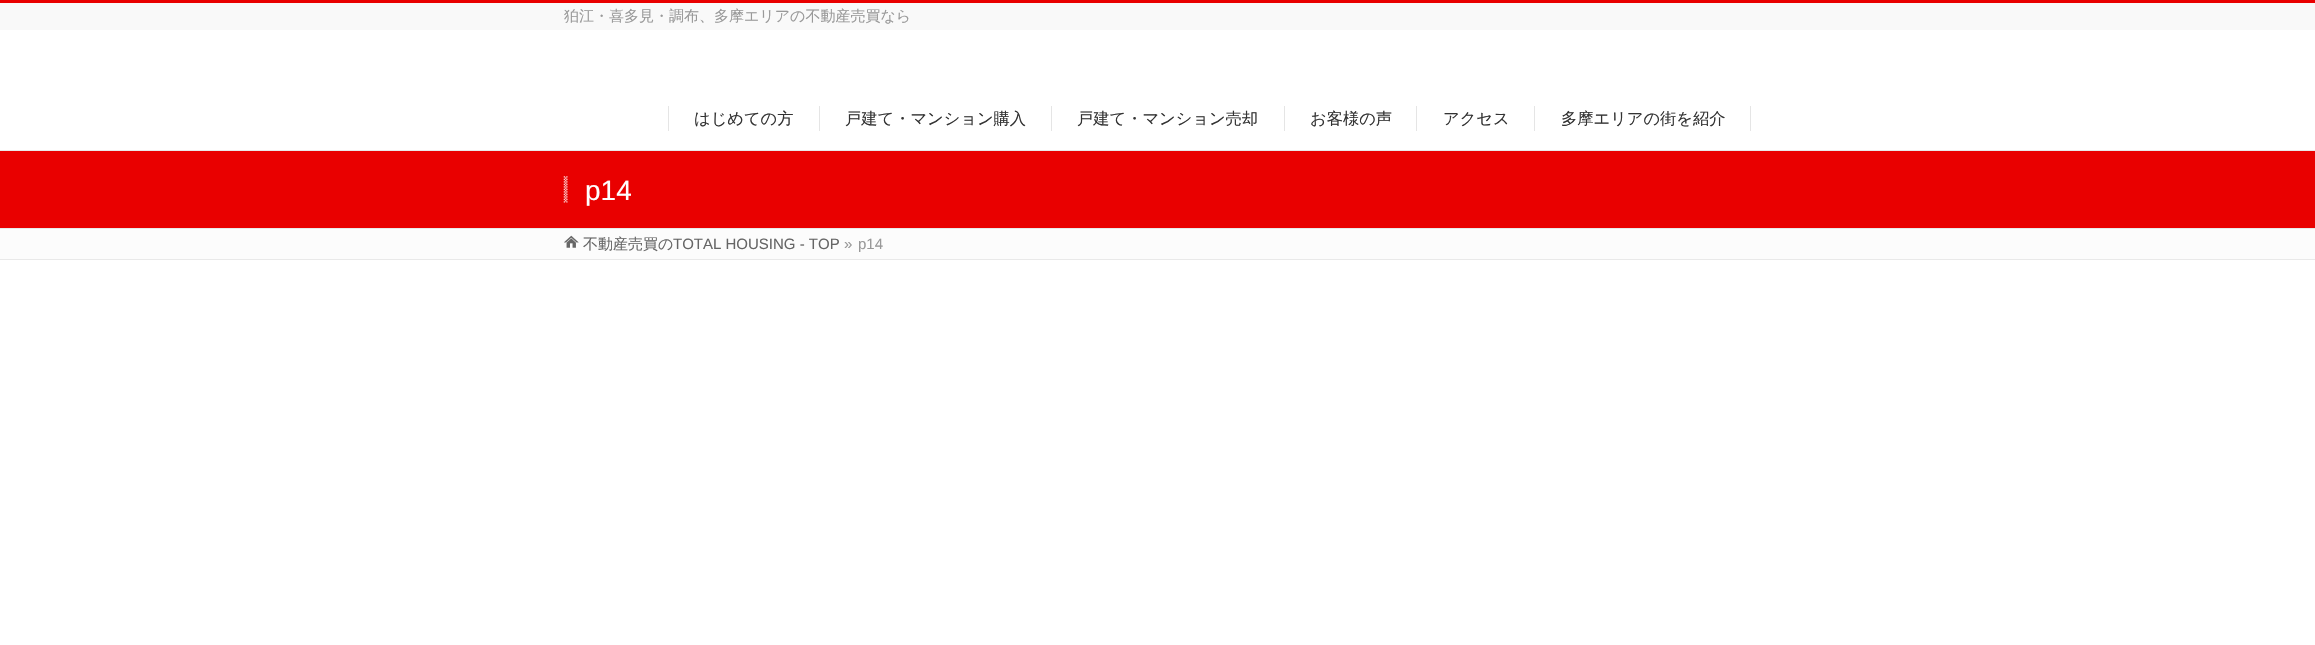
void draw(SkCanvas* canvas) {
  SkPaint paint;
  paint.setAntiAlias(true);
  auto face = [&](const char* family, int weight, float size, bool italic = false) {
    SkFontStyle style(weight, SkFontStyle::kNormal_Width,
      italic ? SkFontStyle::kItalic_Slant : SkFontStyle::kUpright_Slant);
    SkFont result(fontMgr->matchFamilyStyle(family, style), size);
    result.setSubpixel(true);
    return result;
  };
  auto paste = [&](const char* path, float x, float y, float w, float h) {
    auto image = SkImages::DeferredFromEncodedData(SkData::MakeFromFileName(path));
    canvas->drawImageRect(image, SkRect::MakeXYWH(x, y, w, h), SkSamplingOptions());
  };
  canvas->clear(0xffffffff);
  {
    const struct { float x, y, w, h; SkColor color; } items[] = {
      {0, 3, 2315, 27, 0xfff9f9f9},
      {0, 0, 2315, 3, 0xffe90000},
      {819, 106, 1, 25, 0xffe5e5e5},
      {668, 106, 1, 25, 0xffe5e5e5},
      {1051, 106, 1, 25, 0xffe5e5e5},
      {1284, 106, 1, 25, 0xffe5e5e5},
      {1416, 106, 1, 25, 0xffe5e5e5},
      {1534, 106, 1, 25, 0xffe5e5e5},
      {1750, 106, 1, 25, 0xffe5e5e5},
      {0, 151, 2315, 77, 0xffe90000},
      {0, 150, 2315, 1, 0xffe9e9e9},
      {0, 228, 2315, 1, 0xffe9e9e9},
    };
    for (auto [x, y, w, h, color] : items) {
      paint.setColor(color);
      canvas->drawRect(SkRect::MakeXYWH(x, y, w, h), paint);
    }
  }
  paste("img/1.png", 563, 176, 5, 27);
  paint.setColor(0xfffcfcfc);
  canvas->drawRect(SkRect::MakeXYWH(0, 229, 2315, 30), paint);
  paste("img/2.png", 564, 235, 15, 13);
  paint.setColor(0xffe9e9e9);
  canvas->drawRect(SkRect::MakeXYWH(0, 259, 2315, 1), paint);
  auto f0 = face("WenQuanYi Zen Hei", 500, 15);
  paint.setColor(0xff999999);
  canvas->drawString("狛江・喜多見・調布、多摩エリアの不動産売買なら", 564, 21, f0, paint);
  auto f1 = face("WenQuanYi Zen Hei", 500, 16.25f);
  paint.setColor(0xff333333);
  {
    const struct { const char* s; float x, y; } items[] = {
      {"はじめての方", 694, 124},
      {"戸建て・マンション購入", 845, 124},
      {"戸建て・マンション売却", 1077, 124},
      {"お客様の声", 1310, 124},
      {"アクセス", 1443, 124},
      {"多摩エリアの街を紹介", 1561, 124},
    };
    for (auto [s, x, y] : items) {
      canvas->drawString(s, x, y, f1, paint);
    }
  }
  auto f2 = face("Liberation Sans", 400, 28);
  paint.setColor(0xffffffff);
  canvas->drawString("p14", 585, 200, f2, paint);
  paint.setColor(0xff666666);
  canvas->drawString("不動産売買の", 583, 249, f0, paint);
  auto f3 = face("Liberation Sans", 400, 15);
  canvas->drawString("TOTAL HOUSING - TOP", 673, 249, f3, paint);
  paint.setColor(0xff999999);
  canvas->drawString("»", 844, 249, f3, paint);
  canvas->drawString("p14", 858, 249, f3, paint);
}
